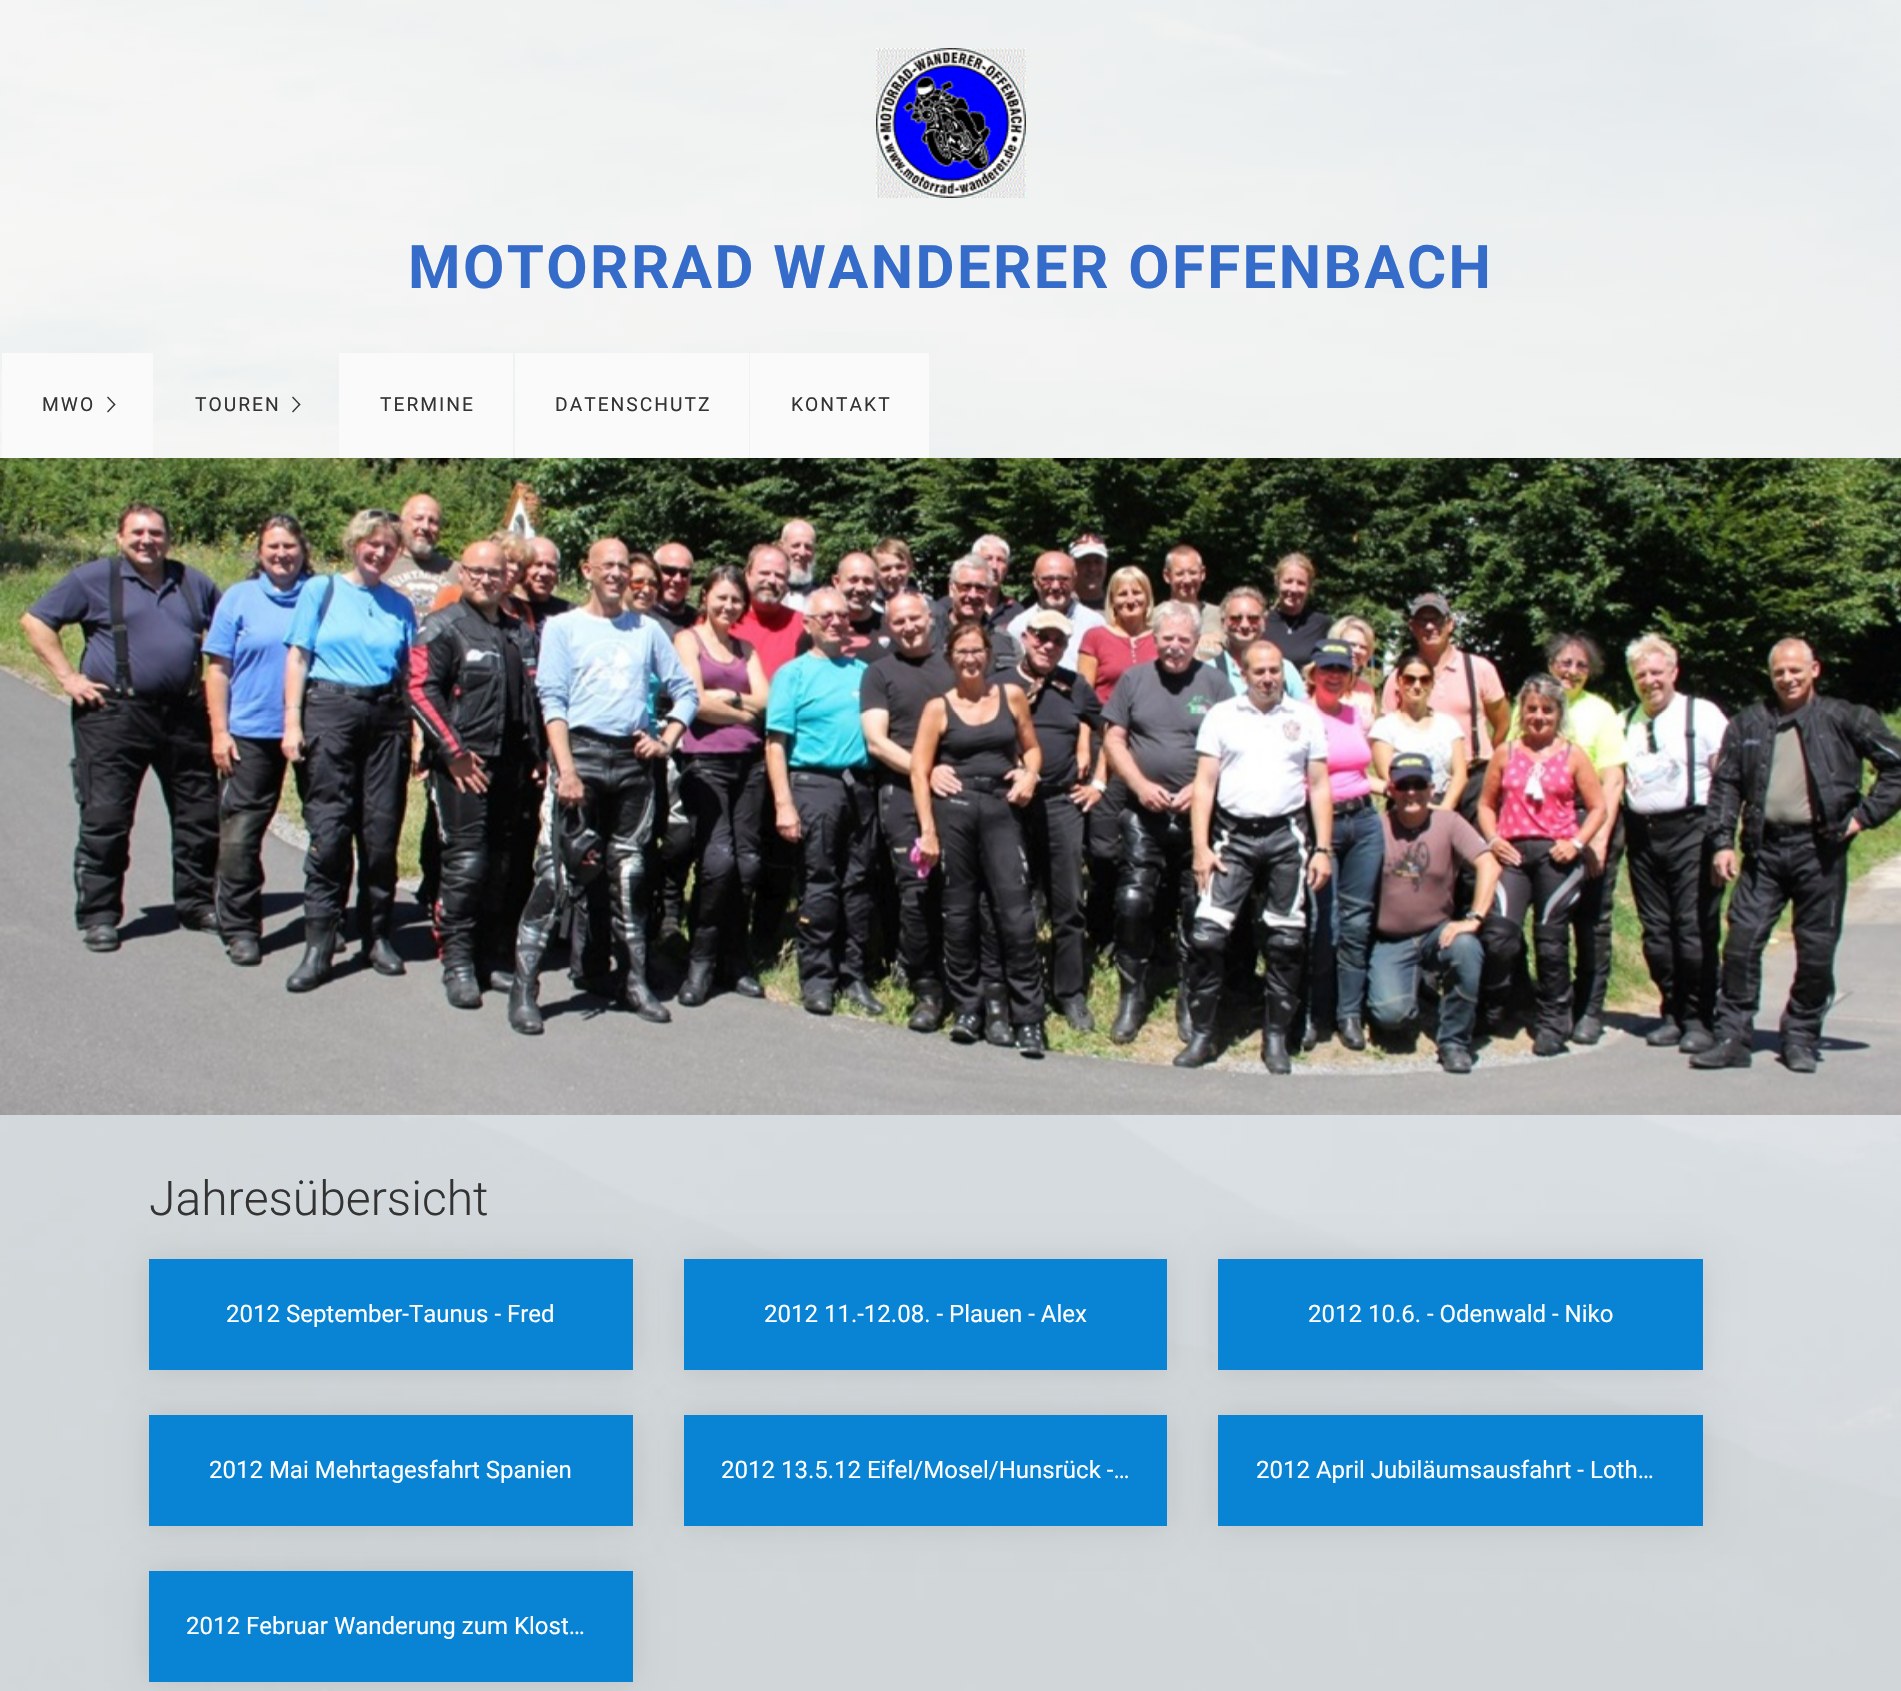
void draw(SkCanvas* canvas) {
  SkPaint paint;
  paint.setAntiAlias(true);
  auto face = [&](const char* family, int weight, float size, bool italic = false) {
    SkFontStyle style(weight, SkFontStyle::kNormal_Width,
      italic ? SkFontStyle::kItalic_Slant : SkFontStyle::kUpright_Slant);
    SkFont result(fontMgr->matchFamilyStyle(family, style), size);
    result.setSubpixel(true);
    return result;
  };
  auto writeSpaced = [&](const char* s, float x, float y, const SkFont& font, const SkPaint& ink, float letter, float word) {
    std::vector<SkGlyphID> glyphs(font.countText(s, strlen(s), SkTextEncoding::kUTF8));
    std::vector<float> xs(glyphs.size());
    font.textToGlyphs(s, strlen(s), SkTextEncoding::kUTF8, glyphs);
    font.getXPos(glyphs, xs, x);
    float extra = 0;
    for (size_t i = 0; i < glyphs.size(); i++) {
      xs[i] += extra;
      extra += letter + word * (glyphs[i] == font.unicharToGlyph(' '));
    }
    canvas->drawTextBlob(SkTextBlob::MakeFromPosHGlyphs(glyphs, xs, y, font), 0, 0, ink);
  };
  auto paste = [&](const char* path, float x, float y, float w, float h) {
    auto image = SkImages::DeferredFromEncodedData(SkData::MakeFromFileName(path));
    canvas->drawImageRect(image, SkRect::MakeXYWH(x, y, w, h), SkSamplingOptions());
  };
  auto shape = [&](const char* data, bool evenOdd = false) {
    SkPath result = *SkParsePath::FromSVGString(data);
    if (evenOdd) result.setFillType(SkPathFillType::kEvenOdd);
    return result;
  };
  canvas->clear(0xffffffff);
  paste("img/1.png", 0, 0, 1901, 1691);
  paste("img/2.png", 876, 48, 150, 150);
  paint.setColor(0xfffafafa);
  canvas->drawRect(SkRect::MakeXYWH(2, 353, 151, 105), paint);
  paint.setColor(0xff333333);
  canvas->drawPath(shape("M108 396.5L115.5 404.5L114.5 405.5L107 397.5Z"), paint);
  canvas->drawPath(shape("M114.5 403.5L115.5 404.5L108 412.5L107 411.5Z"), paint);
  canvas->drawPath(shape("M293 396.5L300.5 404.5L299.5 405.5L292 397.5Z"), paint);
  canvas->drawPath(shape("M299.5 403.5L300.5 404.5L293 412.5L292 411.5Z"), paint);
  {
    const struct { float x, y, w, h; SkColor color; } items[] = {
      {339, 353, 174, 105, 0xfffafafa},
      {515, 353, 234, 105, 0xfffafafa},
      {750, 353, 179, 105, 0xfffafafa},
    };
    for (auto [x, y, w, h, color] : items) {
      paint.setColor(color);
      canvas->drawRect(SkRect::MakeXYWH(x, y, w, h), paint);
    }
  }
  paste("img/3.png", 0, 458, 1901, 657);
  paint.setColor(0x1a000000);
  paint.setMaskFilter(SkMaskFilter::MakeBlur(kNormal_SkBlurStyle, 15));
  canvas->drawRect(SkRect::MakeXYWH(149, 1259, 484, 111), paint);
  paint.setMaskFilter(nullptr);
  paint.setColor(0xff0983d3);
  canvas->drawRect(SkRect::MakeXYWH(149, 1259, 484, 111), paint);
  paint.setColor(0x1a000000);
  paint.setMaskFilter(SkMaskFilter::MakeBlur(kNormal_SkBlurStyle, 15));
  canvas->drawRect(SkRect::MakeXYWH(684, 1259, 483, 111), paint);
  paint.setMaskFilter(nullptr);
  paint.setColor(0xff0983d3);
  canvas->drawRect(SkRect::MakeXYWH(684, 1259, 483, 111), paint);
  paint.setColor(0x1a000000);
  paint.setMaskFilter(SkMaskFilter::MakeBlur(kNormal_SkBlurStyle, 15));
  canvas->drawRect(SkRect::MakeXYWH(1218, 1259, 485, 111), paint);
  paint.setMaskFilter(nullptr);
  paint.setColor(0xff0983d3);
  canvas->drawRect(SkRect::MakeXYWH(1218, 1259, 485, 111), paint);
  paint.setColor(0x1a000000);
  paint.setMaskFilter(SkMaskFilter::MakeBlur(kNormal_SkBlurStyle, 15));
  canvas->drawRect(SkRect::MakeXYWH(149, 1415, 484, 111), paint);
  paint.setMaskFilter(nullptr);
  paint.setColor(0xff0983d3);
  canvas->drawRect(SkRect::MakeXYWH(149, 1415, 484, 111), paint);
  paint.setColor(0x1a000000);
  paint.setMaskFilter(SkMaskFilter::MakeBlur(kNormal_SkBlurStyle, 15));
  canvas->drawRect(SkRect::MakeXYWH(684, 1415, 483, 111), paint);
  paint.setMaskFilter(nullptr);
  paint.setColor(0xff0983d3);
  canvas->drawRect(SkRect::MakeXYWH(684, 1415, 483, 111), paint);
  paint.setColor(0x1a000000);
  paint.setMaskFilter(SkMaskFilter::MakeBlur(kNormal_SkBlurStyle, 15));
  canvas->drawRect(SkRect::MakeXYWH(1218, 1415, 485, 111), paint);
  paint.setMaskFilter(nullptr);
  paint.setColor(0xff0983d3);
  canvas->drawRect(SkRect::MakeXYWH(1218, 1415, 485, 111), paint);
  paint.setColor(0x1a000000);
  paint.setMaskFilter(SkMaskFilter::MakeBlur(kNormal_SkBlurStyle, 15));
  canvas->drawRect(SkRect::MakeXYWH(149, 1571, 484, 111), paint);
  paint.setMaskFilter(nullptr);
  paint.setColor(0xff0983d3);
  canvas->drawRect(SkRect::MakeXYWH(149, 1571, 484, 111), paint);
  auto f0 = face("Roboto", 700, 60);
  paint.setColor(0xff356cca);
  writeSpaced("MOTORRAD WANDERER OFFENBACH", 408, 288, f0, paint, 2.4f, 0);
  auto f1 = face("Roboto", 400, 19.25f);
  paint.setColor(0xff333333);
  {
    const struct { const char* s; float x, y; } items[] = {
      {"MWO", 42, 411},
      {"TOUREN", 195, 411},
      {"TERMINE", 380, 411},
      {"DATENSCHUTZ", 555, 411},
      {"KONTAKT", 791, 411},
    };
    for (auto [s, x, y] : items) {
      writeSpaced(s, x, y, f1, paint, 2, 0);
    }
  }
  auto f2 = face("Roboto", 300, 48);
  canvas->drawString("Jahresübersicht", 149, 1215, f2, paint);
  auto f3 = face("Roboto", 400, 24);
  paint.setColor(0xffffffff);
  {
    const struct { const char* s; float x, y; } items[] = {
      {"2012 September-Taunus - Fred", 226, 1322},
      {"2012 11.-12.08. - Plauen - Alex", 764, 1322},
      {"2012 10.6. - Odenwald - Niko", 1308, 1322},
      {"2012 Mai Mehrtagesfahrt Spanien", 209, 1478},
      {"2012 13.5.12 Eifel/Mosel/Hunsrück -…", 721, 1478},
      {"2012 April Jubiläumsausfahrt - Loth…", 1256, 1478},
      {"2012 Februar Wanderung zum Klost…", 186, 1634},
    };
    for (auto [s, x, y] : items) {
      canvas->drawString(s, x, y, f3, paint);
    }
  }
}
